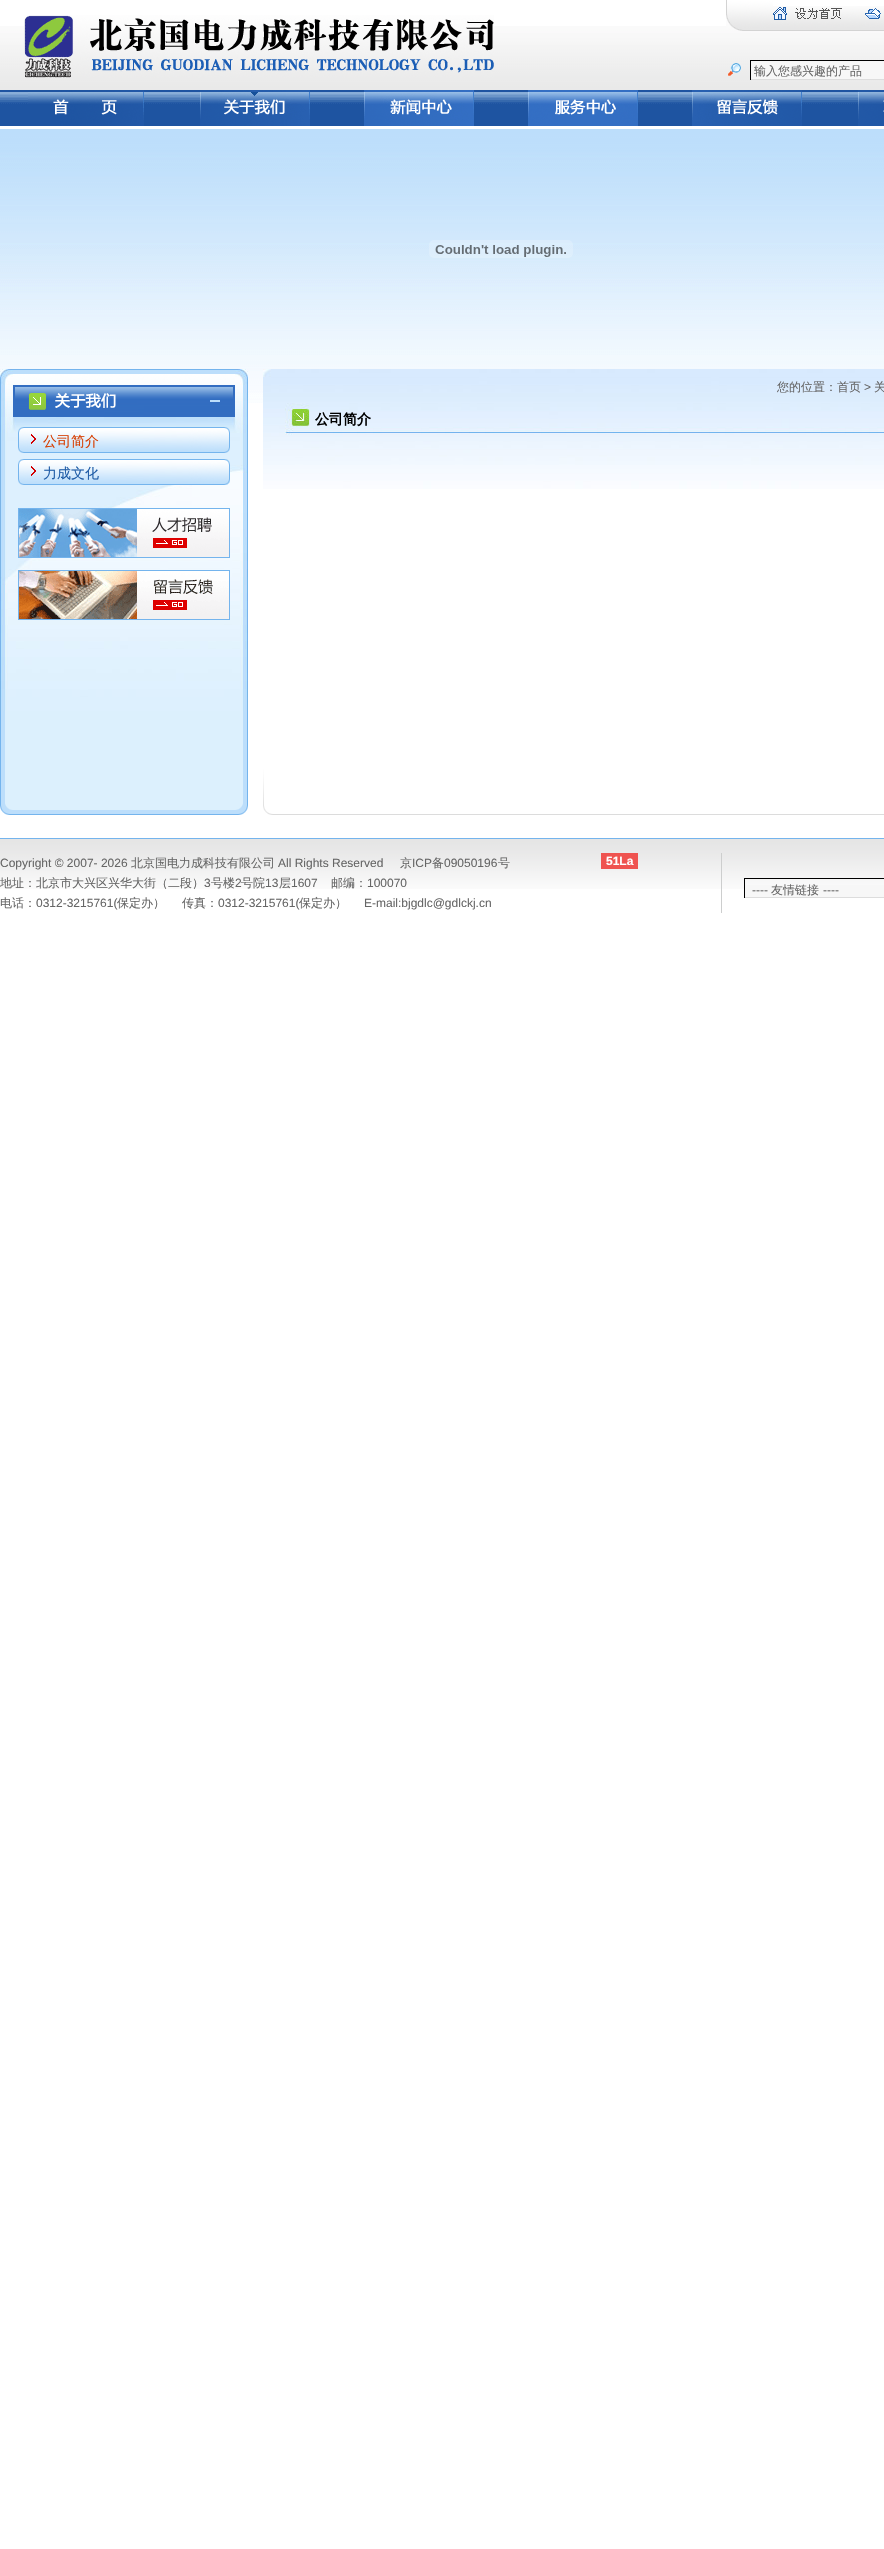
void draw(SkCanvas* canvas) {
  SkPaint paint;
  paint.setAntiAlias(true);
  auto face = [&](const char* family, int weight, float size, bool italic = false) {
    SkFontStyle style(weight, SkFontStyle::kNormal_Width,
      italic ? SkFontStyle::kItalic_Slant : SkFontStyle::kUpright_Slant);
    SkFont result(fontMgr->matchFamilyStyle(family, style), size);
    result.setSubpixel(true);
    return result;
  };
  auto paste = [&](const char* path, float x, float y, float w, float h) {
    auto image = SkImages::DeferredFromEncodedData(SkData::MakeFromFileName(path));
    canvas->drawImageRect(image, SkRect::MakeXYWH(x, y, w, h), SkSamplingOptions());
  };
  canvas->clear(0xffffffff);
  paste("img/1.png", 0, 26, 884, 377);
  paste("img/2.png", 24, 15, 470, 63);
  paste("img/3.png", 726, 0, 47, 31);
  paste("img/4.png", 773, 6, 80, 25);
  paste("img/5.png", 853, 6, 31, 25);
  paste("img/6.png", 728, 63, 13, 13);
  {
    const struct { float x, y, w, h; SkColor color; } items[] = {
      {751, 61, 133, 18, 0xfff7f7f7},
      {750, 60, 134, 1, 0xff000000},
      {750, 79, 134, 1, 0xffdddddd},
      {750, 60, 1, 20, 0xff000000},
    };
    for (auto [x, y, w, h, color] : items) {
      paint.setColor(color);
      canvas->drawRect(SkRect::MakeXYWH(x, y, w, h), paint);
    }
  }
  paste("img/7.png", 28, 90, 116, 36);
  paste("img/8.png", 200, 90, 110, 36);
  paste("img/9.png", 364, 90, 110, 36);
  paste("img/10.png", 528, 90, 110, 36);
  paste("img/11.png", 692, 90, 110, 36);
  paste("img/12.png", 858, 90, 26, 36);
  paste("img/13.png", 429, 240, 144, 18);
  paste("img/14.png", 0, 711, 248, 58);
  paste("img/15.png", 263, 369, 621, 120);
  paste("img/16.png", 285, 403, 599, 32);
  paste("img/17.png", 0, 369, 248, 342);
  paste("img/18.png", 13, 369, 222, 48);
  paste("img/19.png", 18, 427, 212, 26);
  paste("img/20.png", 18, 459, 212, 26);
  paste("img/21.png", 18, 508, 212, 50);
  paste("img/22.png", 18, 570, 212, 50);
  paste("img/23.png", 0, 769, 884, 46);
  paste("img/24.png", 0, 838, 884, 51);
  {
    const struct { float x, y, w, h; SkColor color; } items[] = {
      {601, 853, 37, 16, 0xffef5350},
      {721, 853, 1, 60, 0xffcdcece},
      {745, 885, 139, 12, 0xfff7f7f7},
      {744, 878, 140, 1, 0xff000000},
      {744, 897, 140, 1, 0xffdddddd},
      {744, 878, 1, 20, 0xff000000},
    };
    for (auto [x, y, w, h, color] : items) {
      paint.setColor(color);
      canvas->drawRect(SkRect::MakeXYWH(x, y, w, h), paint);
    }
  }
  auto f0 = face("WenQuanYi Zen Hei", 500, 12);
  paint.setColor(0xff666666);
  canvas->drawString("输入您感兴趣的产品", 754, 75, f0, paint);
  canvas->drawString("您的位置：首页", 777, 391, f0, paint);
  auto f1 = face("Liberation Sans", 400, 12);
  canvas->drawString(">", 864, 391, f1, paint);
  canvas->drawString("关", 874, 391, f0, paint);
  auto f2 = face("WenQuanYi Zen Hei", 700, 14);
  paint.setColor(0xff000000);
  canvas->drawString("公司简介", 315, 424, f2, paint);
  auto f3 = face("WenQuanYi Zen Hei", 500, 14);
  paint.setColor(0xffd73d00);
  canvas->drawString("公司简介", 43, 446, f3, paint);
  paint.setColor(0xff1f5ca7);
  canvas->drawString("力成文化", 43, 478, f3, paint);
  paint.setColor(0xff666666);
  canvas->drawString("Copyright © 2007- 2026", 0, 867, f1, paint);
  canvas->drawString("北京国电力成科技有限公司", 131, 867, f0, paint);
  canvas->drawString("All Rights Reserved", 278, 867, f1, paint);
  canvas->drawString("京", 400, 867, f0, paint);
  canvas->drawString("ICP", 412, 867, f1, paint);
  canvas->drawString("备", 432, 867, f0, paint);
  canvas->drawString("09050196", 444, 867, f1, paint);
  canvas->drawString("号", 498, 867, f0, paint);
  canvas->drawString("地址：北京市大兴区兴华大街（二段）", 0, 887, f0, paint);
  canvas->drawString("3", 204, 887, f1, paint);
  canvas->drawString("号楼", 211, 887, f0, paint);
  canvas->drawString("2", 235, 887, f1, paint);
  canvas->drawString("号院", 241, 887, f0, paint);
  canvas->drawString("13", 265, 887, f1, paint);
  canvas->drawString("层", 279, 887, f0, paint);
  canvas->drawString("1607", 291, 887, f1, paint);
  canvas->drawString("邮编：", 331, 887, f0, paint);
  canvas->drawString("100070", 367, 887, f1, paint);
  canvas->drawString("电话：", 0, 907, f0, paint);
  canvas->drawString("0312-3215761(", 36, 907, f1, paint);
  canvas->drawString("保定办）", 117, 907, f0, paint);
  canvas->drawString("传真：", 182, 907, f0, paint);
  canvas->drawString("0312-3215761(", 218, 907, f1, paint);
  canvas->drawString("保定办）", 299, 907, f0, paint);
  canvas->drawString("E-mail:bjgdlc@gdlckj.cn", 364, 907, f1, paint);
  auto f4 = face("Liberation Sans", 700, 12);
  paint.setColor(0xffffffff);
  canvas->drawString("51La", 606, 865, f4, paint);
  paint.setColor(0xff666666);
  canvas->drawString("----", 752, 894, f1, paint);
  canvas->drawString("友情链接", 771, 894, f0, paint);
  canvas->drawString("----", 823, 894, f1, paint);
}
